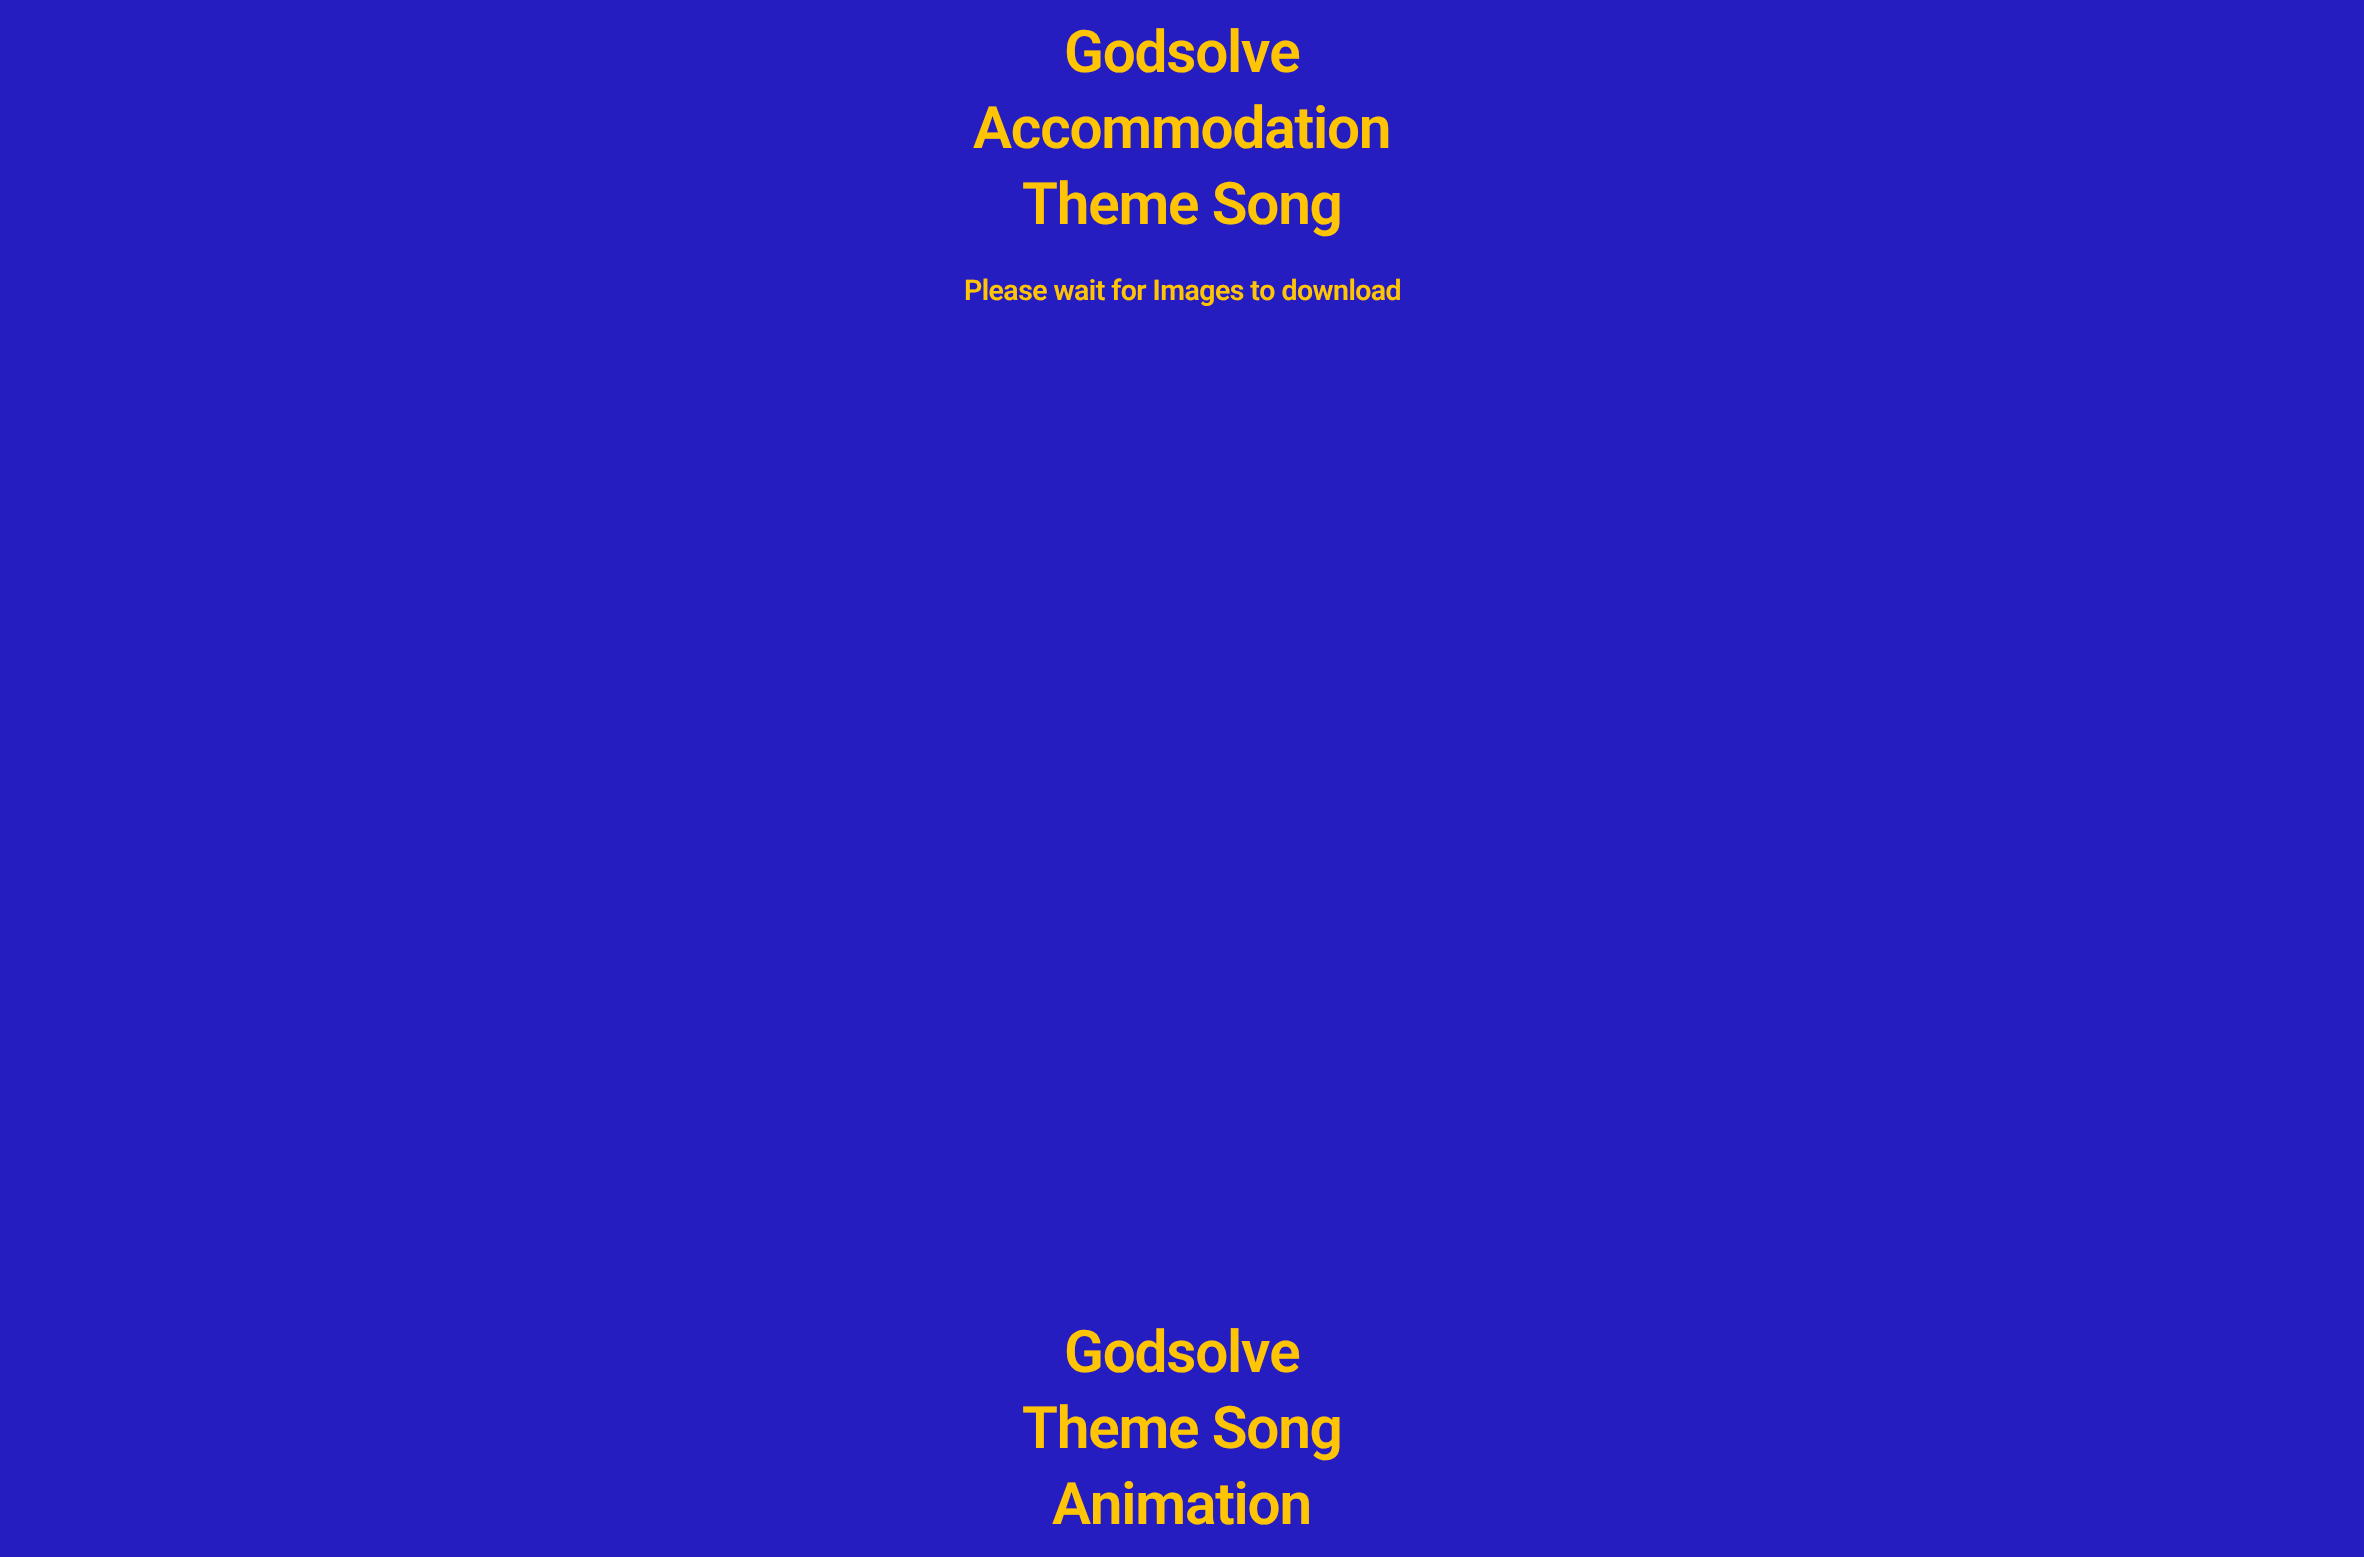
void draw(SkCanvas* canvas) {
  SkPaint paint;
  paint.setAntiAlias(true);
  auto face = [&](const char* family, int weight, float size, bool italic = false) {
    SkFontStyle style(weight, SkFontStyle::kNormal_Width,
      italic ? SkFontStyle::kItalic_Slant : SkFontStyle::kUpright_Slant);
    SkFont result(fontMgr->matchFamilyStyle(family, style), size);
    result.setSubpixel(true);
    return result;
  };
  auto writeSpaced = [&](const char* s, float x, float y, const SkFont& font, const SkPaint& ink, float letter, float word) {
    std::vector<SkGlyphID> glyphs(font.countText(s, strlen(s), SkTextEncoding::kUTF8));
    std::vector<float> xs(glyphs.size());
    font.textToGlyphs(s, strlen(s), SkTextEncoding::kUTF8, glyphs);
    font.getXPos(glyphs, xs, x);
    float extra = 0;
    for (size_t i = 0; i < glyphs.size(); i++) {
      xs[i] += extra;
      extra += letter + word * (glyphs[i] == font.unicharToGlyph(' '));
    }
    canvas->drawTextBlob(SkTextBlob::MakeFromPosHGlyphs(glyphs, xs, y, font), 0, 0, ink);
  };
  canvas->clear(0xff261dc1);
  auto f0 = face("Roboto", 600, 58.5f);
  paint.setColor(0xffffc403);
  {
    const struct { const char* s; float x, y; } items[] = {
      {"Godsolve", 1064, 72},
      {"Accommodation", 973, 148},
      {"Theme Song", 1022, 224},
    };
    for (auto [s, x, y] : items) {
      writeSpaced(s, x, y, f0, paint, -1.2f, 0);
    }
  }
  auto f1 = face("Roboto", 600, 28.5f);
  writeSpaced("Please wait for Images to download", 964, 300, f1, paint, -0.55f, 0);
  {
    const struct { const char* s; float x, y; } items[] = {
      {"Godsolve", 1064, 1372},
      {"Theme Song", 1022, 1448},
      {"Animation", 1052, 1524},
    };
    for (auto [s, x, y] : items) {
      writeSpaced(s, x, y, f0, paint, -1.2f, 0);
    }
  }
}
